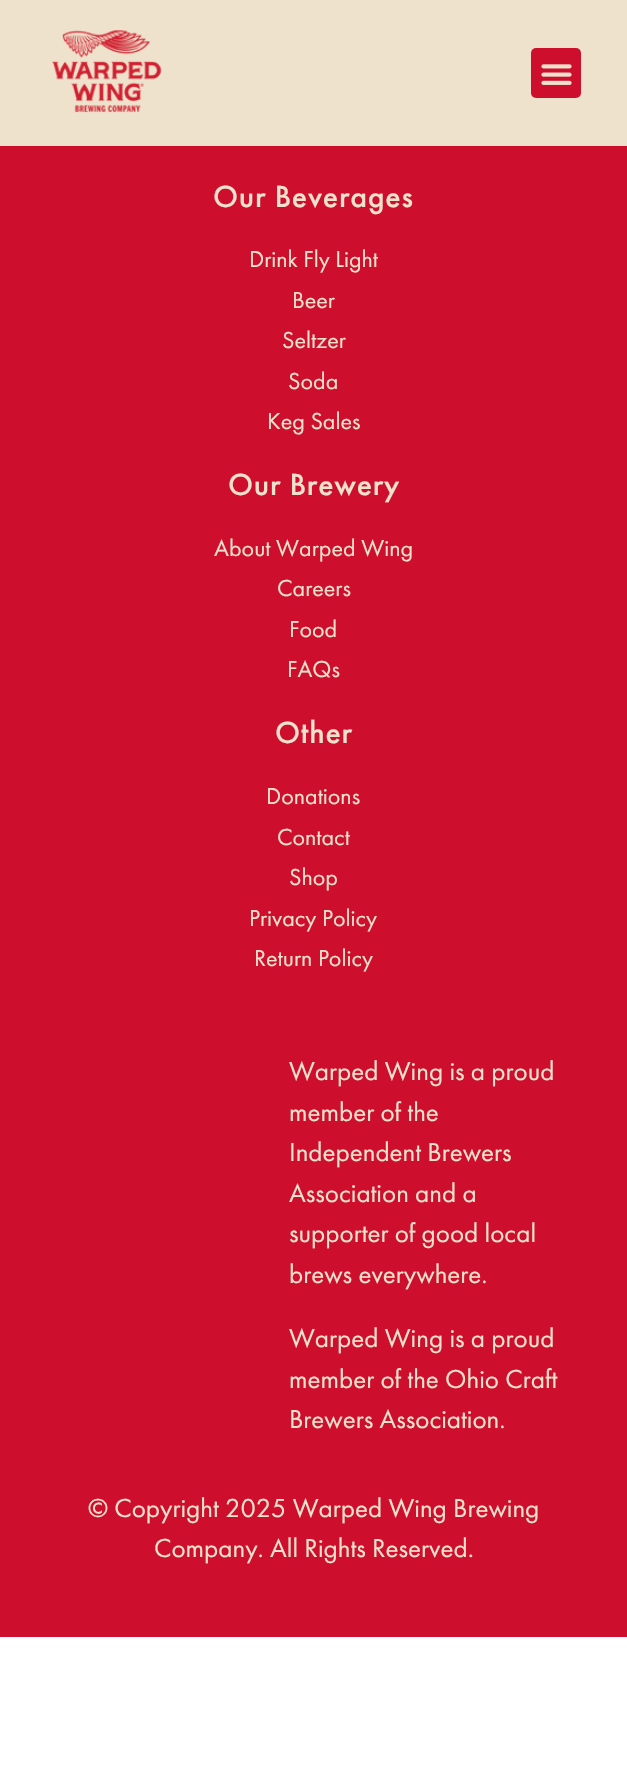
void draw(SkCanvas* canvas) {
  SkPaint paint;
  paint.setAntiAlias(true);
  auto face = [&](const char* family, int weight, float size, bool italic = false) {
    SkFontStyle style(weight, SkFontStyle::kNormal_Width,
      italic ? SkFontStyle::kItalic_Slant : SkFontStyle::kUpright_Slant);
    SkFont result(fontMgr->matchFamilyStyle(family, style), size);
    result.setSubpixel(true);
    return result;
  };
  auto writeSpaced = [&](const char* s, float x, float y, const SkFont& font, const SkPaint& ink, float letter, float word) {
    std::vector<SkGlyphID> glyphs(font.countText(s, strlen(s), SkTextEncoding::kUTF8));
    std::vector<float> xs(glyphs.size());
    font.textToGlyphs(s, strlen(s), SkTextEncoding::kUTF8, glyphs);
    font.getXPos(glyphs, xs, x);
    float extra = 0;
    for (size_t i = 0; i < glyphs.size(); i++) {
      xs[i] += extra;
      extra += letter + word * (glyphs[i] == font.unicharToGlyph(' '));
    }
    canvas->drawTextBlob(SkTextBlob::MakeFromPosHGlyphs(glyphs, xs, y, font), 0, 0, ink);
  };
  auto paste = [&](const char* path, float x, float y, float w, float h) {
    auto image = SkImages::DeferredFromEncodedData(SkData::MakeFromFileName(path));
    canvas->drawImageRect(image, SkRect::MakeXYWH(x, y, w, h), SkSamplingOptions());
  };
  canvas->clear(0xffffffff);
  paint.setColor(0xffefe2cd);
  canvas->drawRect(SkRect::MakeXYWH(0, 0, 627, 146), paint);
  paste("img/1.png", 52, 30, 110, 83);
  paint.setColor(0xffce0e2d);
  canvas->drawRoundRect(SkRect::MakeXYWH(531, 48, 50, 50), 5, 5, paint);
  paste("img/2.png", 541, 64, 31, 21);
  canvas->drawRect(SkRect::MakeXYWH(0, 146, 627, 1491), paint);
  auto f0 = face("Futura PT", 500, 31.75f);
  paint.setColor(0xffefe2cd);
  writeSpaced("Our Beverages", 213, 207, f0, paint, 0.75f, 0);
  auto f1 = face("Futura PT", 400, 24);
  {
    const struct { const char* s; float x, y; } items[] = {
      {"Drink Fly Light", 249, 267},
      {"Beer", 292, 308},
      {"Seltzer", 282, 348},
      {"Soda", 288, 389},
      {"Keg Sales", 267, 429},
    };
    for (auto [s, x, y] : items) {
      canvas->drawString(s, x, y, f1, paint);
    }
  }
  writeSpaced("Our Brewery", 228, 495, f0, paint, 0.75f, 0);
  {
    const struct { const char* s; float x, y; } items[] = {
      {"About Warped Wing", 214, 556},
      {"Careers", 277, 596},
      {"Food", 289, 637},
      {"FAQs", 287, 677},
    };
    for (auto [s, x, y] : items) {
      canvas->drawString(s, x, y, f1, paint);
    }
  }
  writeSpaced("Other", 275, 743, f0, paint, 0.75f, 0);
  {
    const struct { const char* s; float x, y; } items[] = {
      {"Donations", 266, 804},
      {"Contact", 277, 845},
      {"Shop", 289, 885},
      {"Privacy Policy", 249, 926},
      {"Return Policy", 254, 966},
    };
    for (auto [s, x, y] : items) {
      canvas->drawString(s, x, y, f1, paint);
    }
  }
  auto f2 = face("Futura PT", 400, 27);
  {
    const struct { const char* s; float x, y; } items[] = {
      {"Warped Wing is a proud", 289, 1080},
      {"member of the", 289, 1121},
      {"Independent Brewers", 289, 1161},
      {"Association and a", 289, 1202},
      {"supporter of good local", 289, 1242},
      {"brews everywhere.", 289, 1283},
      {"Warped Wing is a proud", 289, 1347},
      {"member of the Ohio Craft", 289, 1388},
      {"Brewers Association.", 289, 1428},
      {"© Copyright 2025 Warped Wing Brewing", 88, 1517},
      {"Company. All Rights Reserved.", 154, 1557},
    };
    for (auto [s, x, y] : items) {
      canvas->drawString(s, x, y, f2, paint);
    }
  }
}
